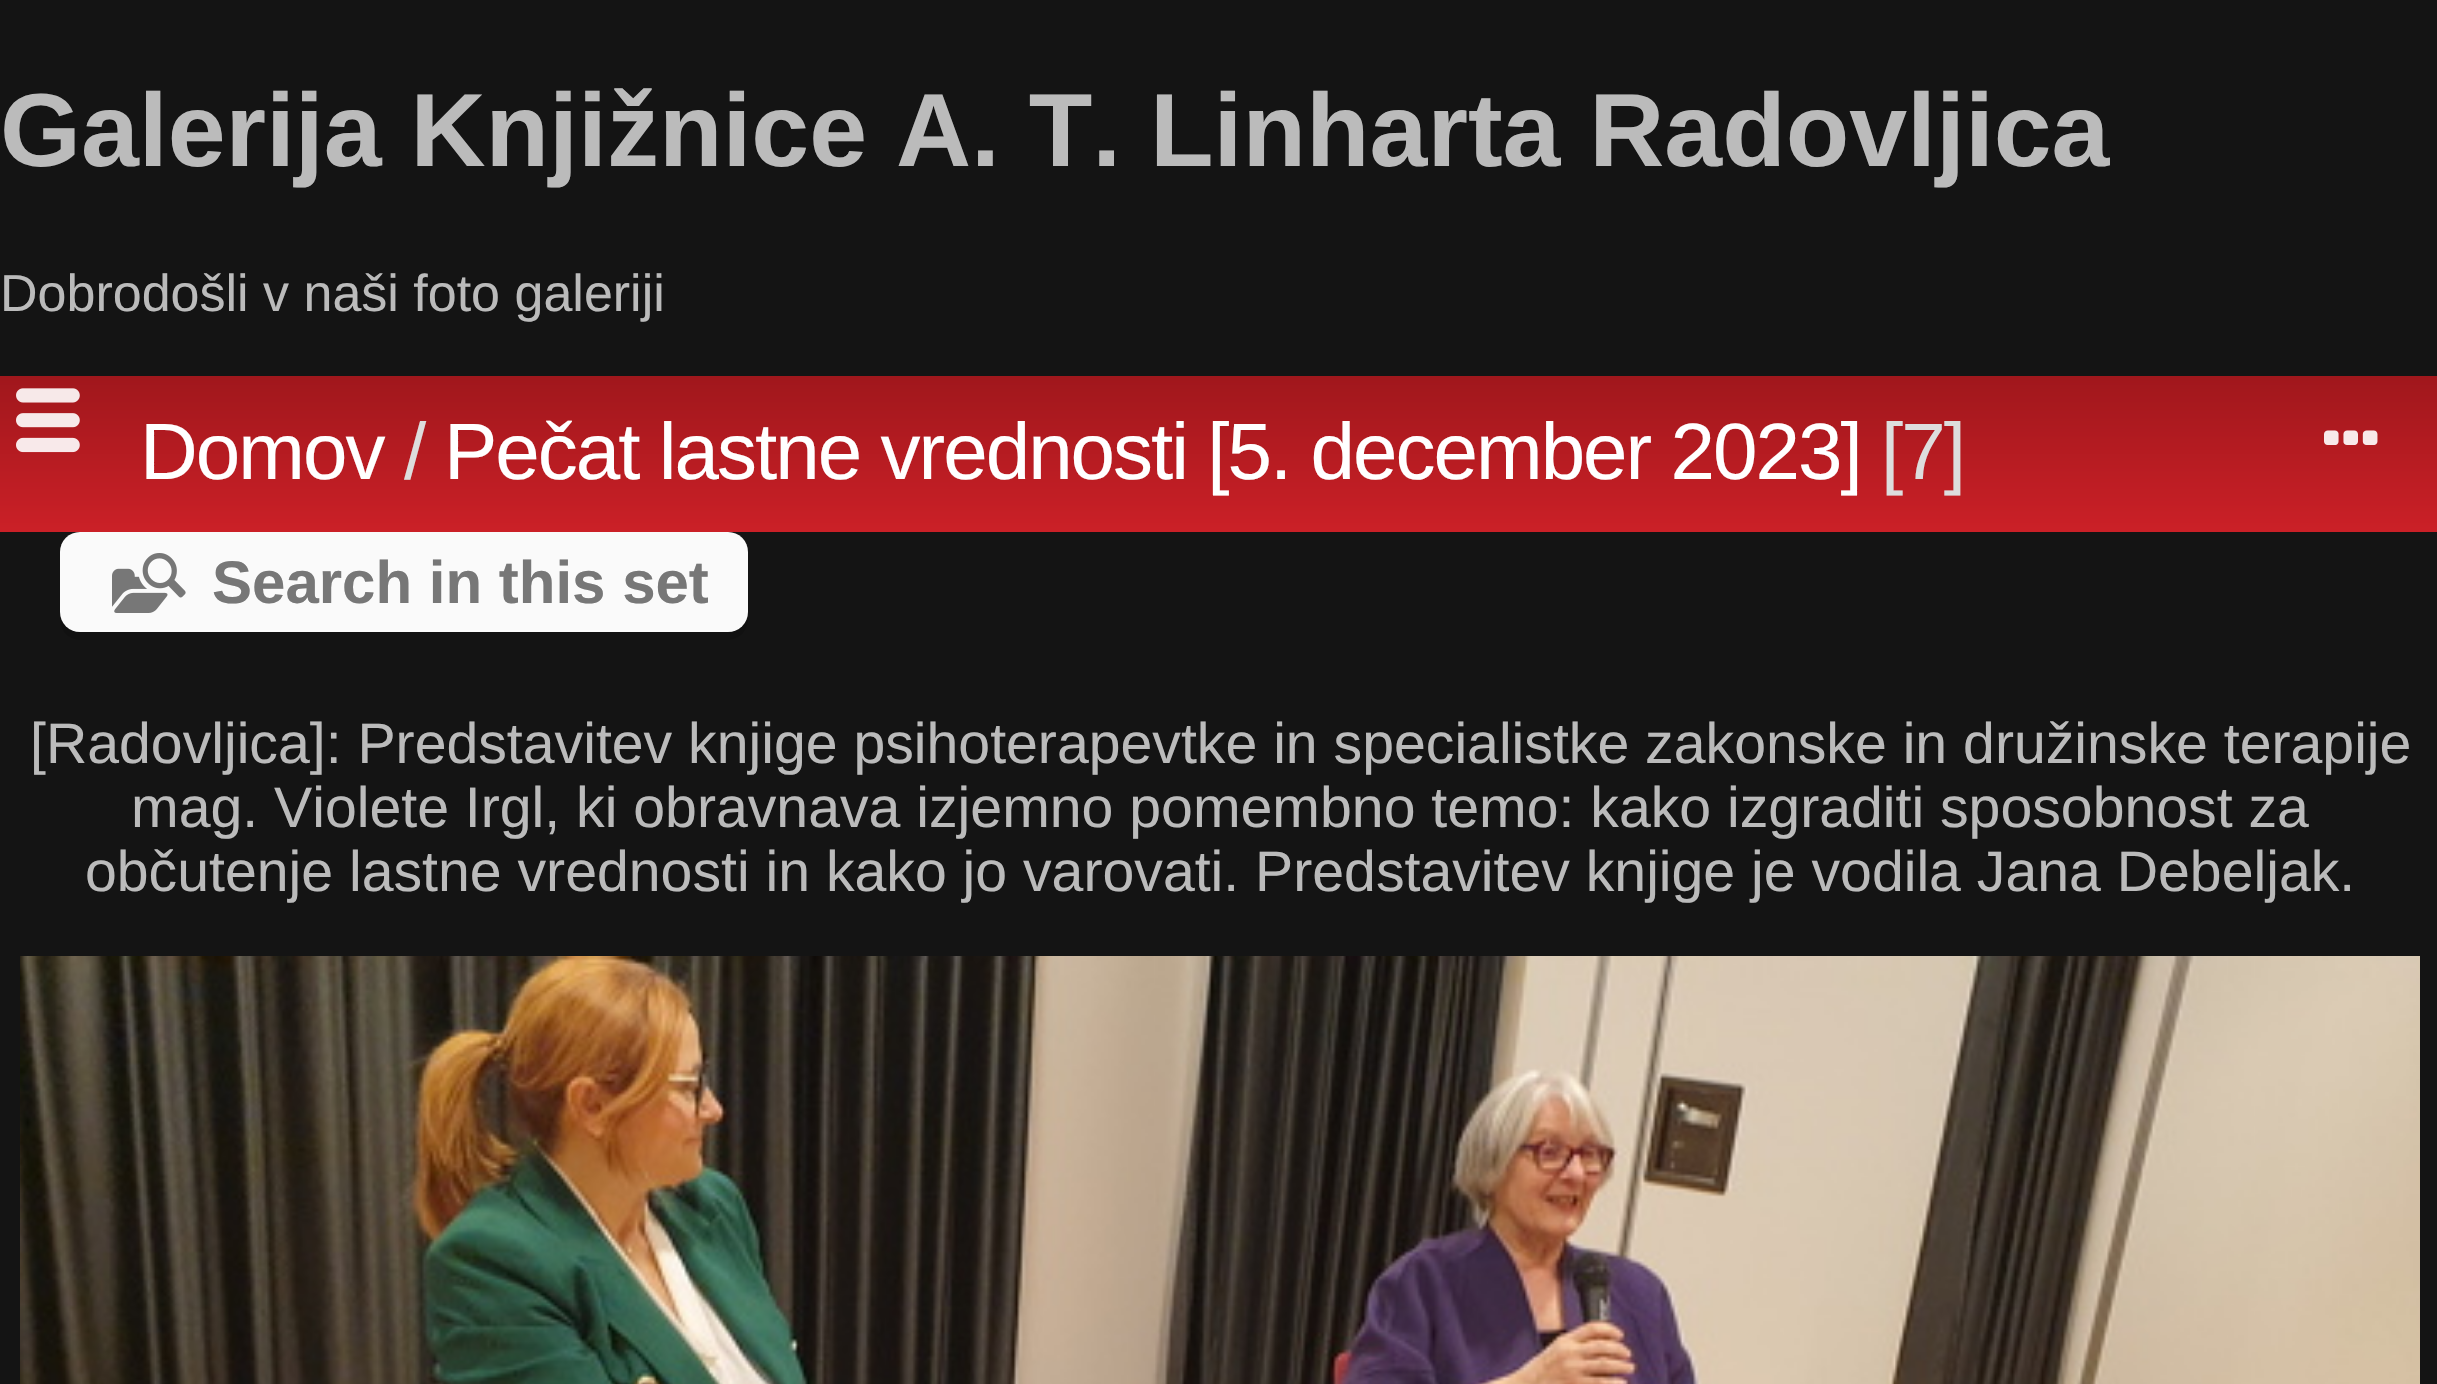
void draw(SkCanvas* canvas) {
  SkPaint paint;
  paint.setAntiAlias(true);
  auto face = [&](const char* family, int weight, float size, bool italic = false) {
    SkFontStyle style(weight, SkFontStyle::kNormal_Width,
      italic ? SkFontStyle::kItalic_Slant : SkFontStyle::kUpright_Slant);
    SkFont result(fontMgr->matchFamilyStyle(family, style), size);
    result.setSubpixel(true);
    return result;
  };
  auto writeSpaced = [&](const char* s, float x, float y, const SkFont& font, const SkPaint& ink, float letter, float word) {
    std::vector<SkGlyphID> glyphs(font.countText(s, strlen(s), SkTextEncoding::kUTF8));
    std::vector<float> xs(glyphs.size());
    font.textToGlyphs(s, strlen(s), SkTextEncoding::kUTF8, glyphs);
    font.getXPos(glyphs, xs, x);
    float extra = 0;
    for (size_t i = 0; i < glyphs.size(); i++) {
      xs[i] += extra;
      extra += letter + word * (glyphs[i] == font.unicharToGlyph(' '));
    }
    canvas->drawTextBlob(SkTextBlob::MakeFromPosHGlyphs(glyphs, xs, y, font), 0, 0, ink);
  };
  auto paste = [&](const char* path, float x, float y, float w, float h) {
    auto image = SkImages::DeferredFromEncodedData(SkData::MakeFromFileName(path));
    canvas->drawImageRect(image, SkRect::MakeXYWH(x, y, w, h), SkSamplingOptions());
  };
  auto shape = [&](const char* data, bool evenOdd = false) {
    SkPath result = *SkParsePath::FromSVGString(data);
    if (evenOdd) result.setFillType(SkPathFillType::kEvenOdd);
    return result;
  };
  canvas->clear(0xff141414);
  {
    const SkColor colors[] = {0xffa0171c, 0xffcb2027};
    const float stops[] = {0, 1};
    const SkPoint ends[] = {{1220, 376}, {1220, 532}};
    paint.setShader(SkGradientShader::MakeLinear(ends, colors, stops, 2, SkTileMode::kClamp));
    paint.setAlpha(255);
  }
  canvas->drawRect(SkRect::MakeXYWH(0, 376, 2437, 156), paint);
  paste("img/1.png", 16, 388, 64, 65);
  paste("img/2.png", 2324, 430, 54, 15);
  paint.setShader(nullptr);
  paint.setColor(0xff111111);
  canvas->drawPath(shape("M60 612V620C60 631 69 640 80 640H728C739 640 748 631 748 620V612C748 623 739 632 728 632H80C69 632 60 623 60 612Z"), paint);
  paint.setColor(0xfffafafa);
  canvas->drawRoundRect(SkRect::MakeXYWH(60, 532, 688, 100), 20, 20, paint);
  paste("img/3.png", 112, 553, 74, 60);
  paste("img/4.png", 20, 956, 2400, 428);
  auto f0 = face("Liberation Sans", 700, 104);
  paint.setColor(0xffbbbbbb);
  canvas->drawString("Galerija Knjižnice A. T. Linharta Radovljica", 0, 166, f0, paint);
  auto f1 = face("Liberation Sans", 400, 52);
  canvas->drawString("Dobrodošli v naši foto galeriji", 0, 311, f1, paint);
  auto f2 = face("Liberation Sans", 400, 80);
  paint.setColor(0xffffffff);
  writeSpaced("Domov", 140, 479, f2, paint, -2, 0);
  paint.setColor(0xffdddddd);
  writeSpaced("/", 404, 479, f2, paint, -2, 0);
  paint.setColor(0xffffffff);
  writeSpaced("Pečat lastne vrednosti [5. december 2023]", 444, 479, f2, paint, -2, 0);
  paint.setColor(0xffdddddd);
  writeSpaced("[7]", 1881, 479, f2, paint, -2, 0);
  auto f3 = face("Liberation Sans", 700, 60);
  paint.setColor(0xff777777);
  canvas->drawString("Search in this set", 212, 603, f3, paint);
  auto f4 = face("Liberation Sans", 400, 57.2f);
  paint.setColor(0xffbbbbbb);
  {
    const struct { const char* s; float x, y; } items[] = {
      {"[Radovljica]: Predstavitev knjige psihoterapevtke in specialistke zakonske in družinske terapije", 30, 763},
      {"mag. Violete Irgl, ki obravnava izjemno pomembno temo: kako izgraditi sposobnost za", 131, 827},
      {"občutenje lastne vrednosti in kako jo varovati. Predstavitev knjige je vodila Jana Debeljak.", 85, 891},
    };
    for (auto [s, x, y] : items) {
      canvas->drawString(s, x, y, f4, paint);
    }
  }
}
